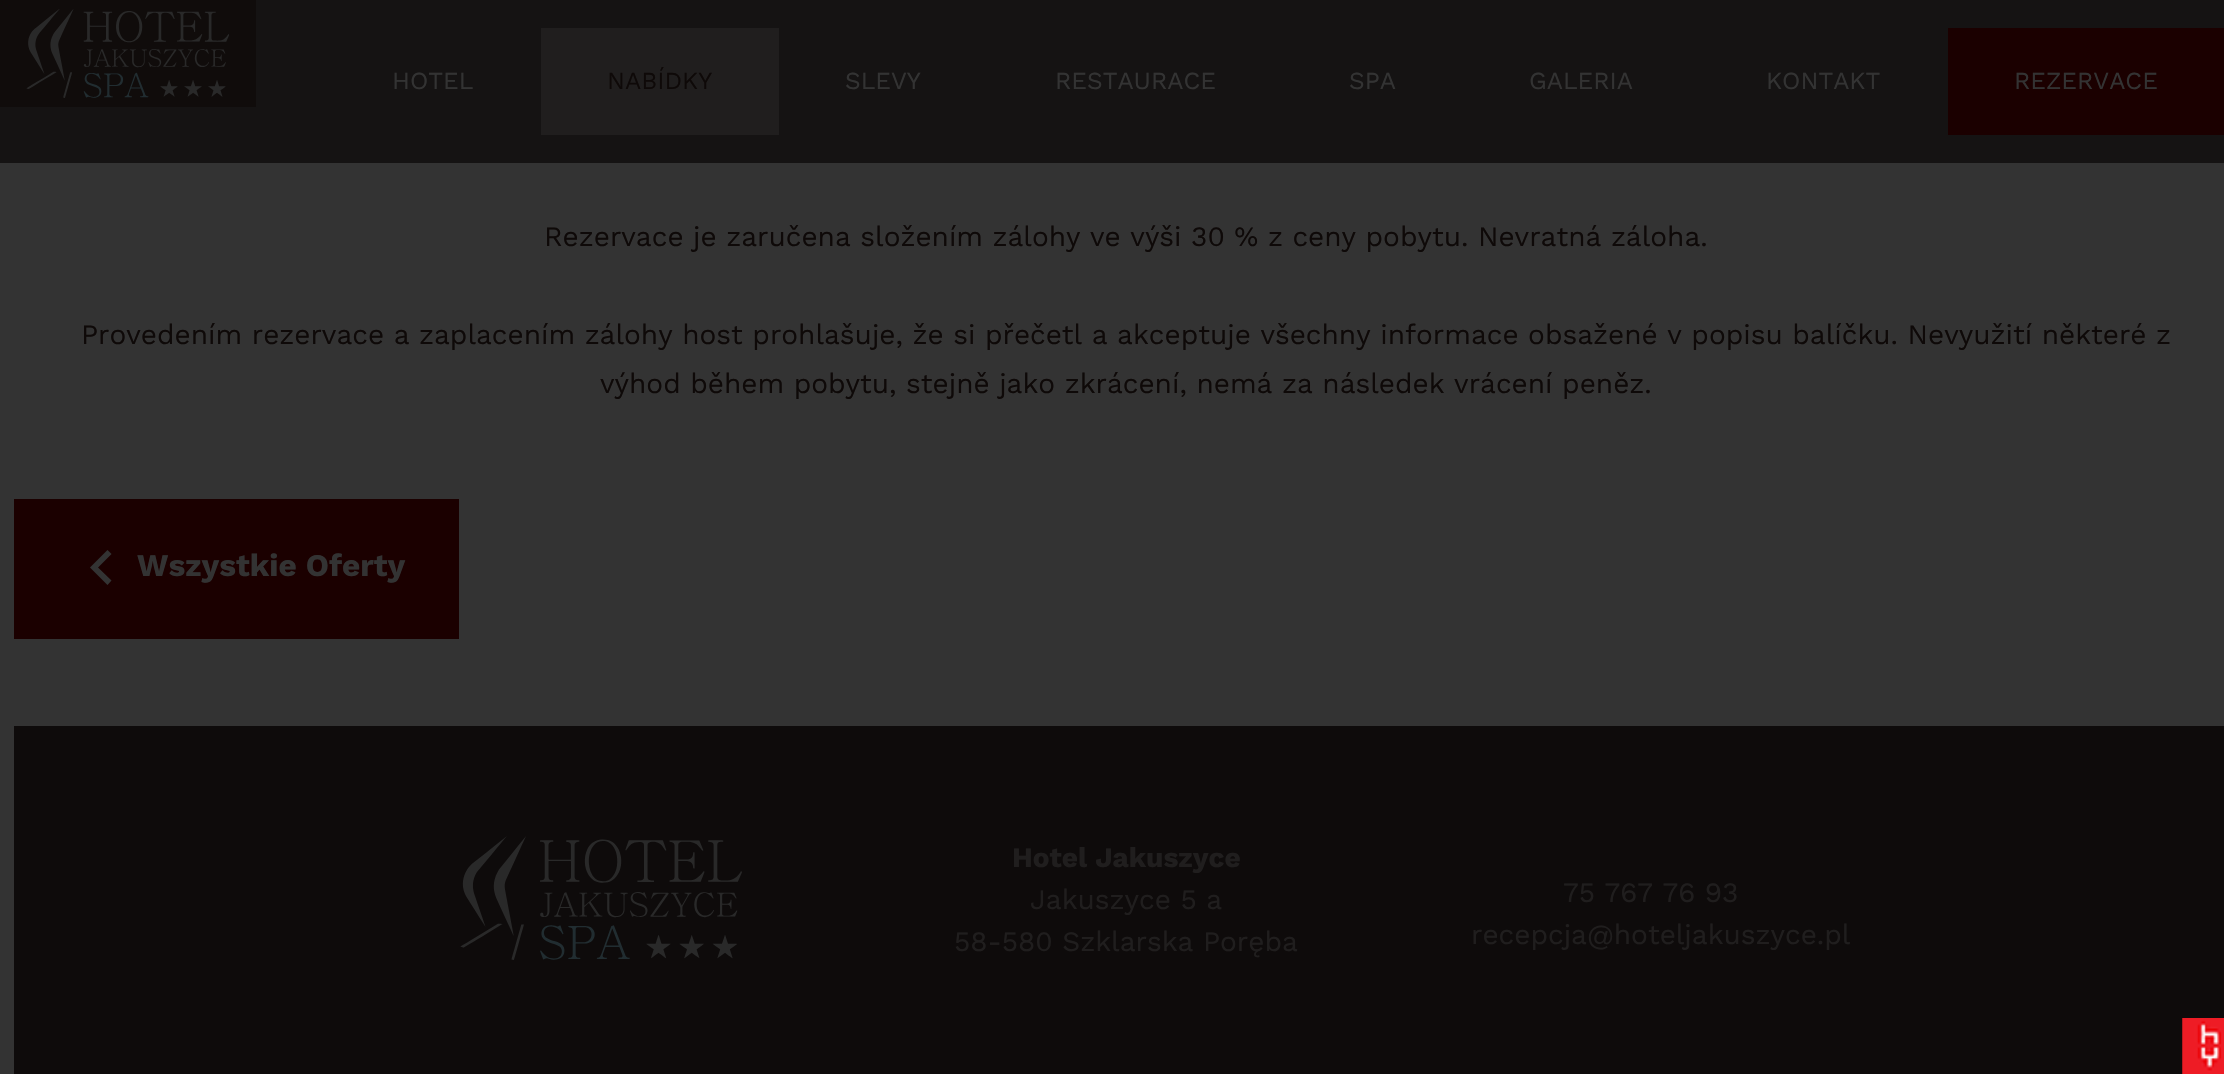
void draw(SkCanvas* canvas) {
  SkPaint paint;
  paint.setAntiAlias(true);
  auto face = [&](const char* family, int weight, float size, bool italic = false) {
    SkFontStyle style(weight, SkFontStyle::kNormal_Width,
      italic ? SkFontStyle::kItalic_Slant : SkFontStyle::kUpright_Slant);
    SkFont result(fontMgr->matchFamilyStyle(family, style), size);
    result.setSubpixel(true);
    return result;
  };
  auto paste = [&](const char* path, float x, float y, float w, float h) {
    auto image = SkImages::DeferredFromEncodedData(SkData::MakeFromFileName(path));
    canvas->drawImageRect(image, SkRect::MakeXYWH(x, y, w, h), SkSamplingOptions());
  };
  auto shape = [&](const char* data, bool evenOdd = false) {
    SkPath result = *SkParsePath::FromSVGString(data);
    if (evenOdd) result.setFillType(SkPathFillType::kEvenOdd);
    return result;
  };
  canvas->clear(0xff333333);
  paint.setColor(0xff151313);
  canvas->drawRect(SkRect::MakeXYWH(0, 0, 2224, 163), paint);
  paint.setColor(0xff100c0b);
  canvas->drawRect(SkRect::MakeXYWH(0, 0, 256, 107), paint);
  paste("img/1.png", 26, 9, 203, 89);
  {
    const struct { float x, y, w, h; SkColor color; } items[] = {
      {541, 28, 238, 107, 0xff201e1e},
      {1948, 28, 276, 107, 0xff1b0000},
      {14, 499, 445, 140, 0xff1b0000},
    };
    for (auto [x, y, w, h, color] : items) {
      paint.setColor(color);
      canvas->drawRect(SkRect::MakeXYWH(x, y, w, h), paint);
    }
  }
  paint.setColor(0xff333333);
  canvas->drawPath(shape("M111.5 580.5L98 567.5L111.5 554L107.5 550L90 567.5L107.5 585Z"), paint);
  paint.setColor(0xff0e0b0b);
  canvas->drawRect(SkRect::MakeXYWH(14, 726, 2210, 348), paint);
  paste("img/2.png", 460, 836, 282, 124);
  paste("img/3.png", 2182, 1018, 42, 56);
  auto f0 = face("Work Sans", 400, 24.5f);
  paint.setColor(0xff333333);
  canvas->drawString("HOTEL", 392, 89, f0, paint);
  paint.setColor(0xff0e0908);
  canvas->drawString("NABÍDKY", 607, 89, f0, paint);
  paint.setColor(0xff333333);
  {
    const struct { const char* s; float x, y; } items[] = {
      {"SLEVY", 845, 89},
      {"RESTAURACE", 1055, 89},
      {"SPA", 1349, 89},
      {"GALERIA", 1529, 89},
      {"KONTAKT", 1766, 89},
      {"REZERVACE", 2014, 89},
    };
    for (auto [s, x, y] : items) {
      canvas->drawString(s, x, y, f0, paint);
    }
  }
  auto f1 = face("Work Sans", 400, 28);
  paint.setColor(0xff0e0908);
  {
    const struct { const char* s; float x, y; } items[] = {
      {"Rezervace je zaručena složením zálohy ve výši 30 % z ceny pobytu. Nevratná záloha.", 544, 246},
      {"Provedením rezervace a zaplacením zálohy host prohlašuje, že si přečetl a akceptuje všechny informace obsažené v popisu balíčku. Nevyužití některé z", 81, 344},
      {"výhod během pobytu, stejně jako zkrácení, nemá za následek vrácení peněz.", 600, 393},
    };
    for (auto [s, x, y] : items) {
      canvas->drawString(s, x, y, f1, paint);
    }
  }
  auto f2 = face("Work Sans", 700, 31.5f);
  paint.setColor(0xff333333);
  canvas->drawString("Wszystkie Oferty", 137, 576, f2, paint);
  auto f3 = face("Work Sans", 700, 28);
  paint.setColor(0xff201e1e);
  canvas->drawString("Hotel Jakuszyce", 1012, 867, f3, paint);
  {
    const struct { const char* s; float x, y; } items[] = {
      {"Jakuszyce 5 a", 1030, 909},
      {"58-580 Szklarska Poręba", 954, 951},
      {"75 767 76 93", 1563, 902},
      {"recepcja@hoteljakuszyce.pl", 1471, 944},
    };
    for (auto [s, x, y] : items) {
      canvas->drawString(s, x, y, f1, paint);
    }
  }
}
